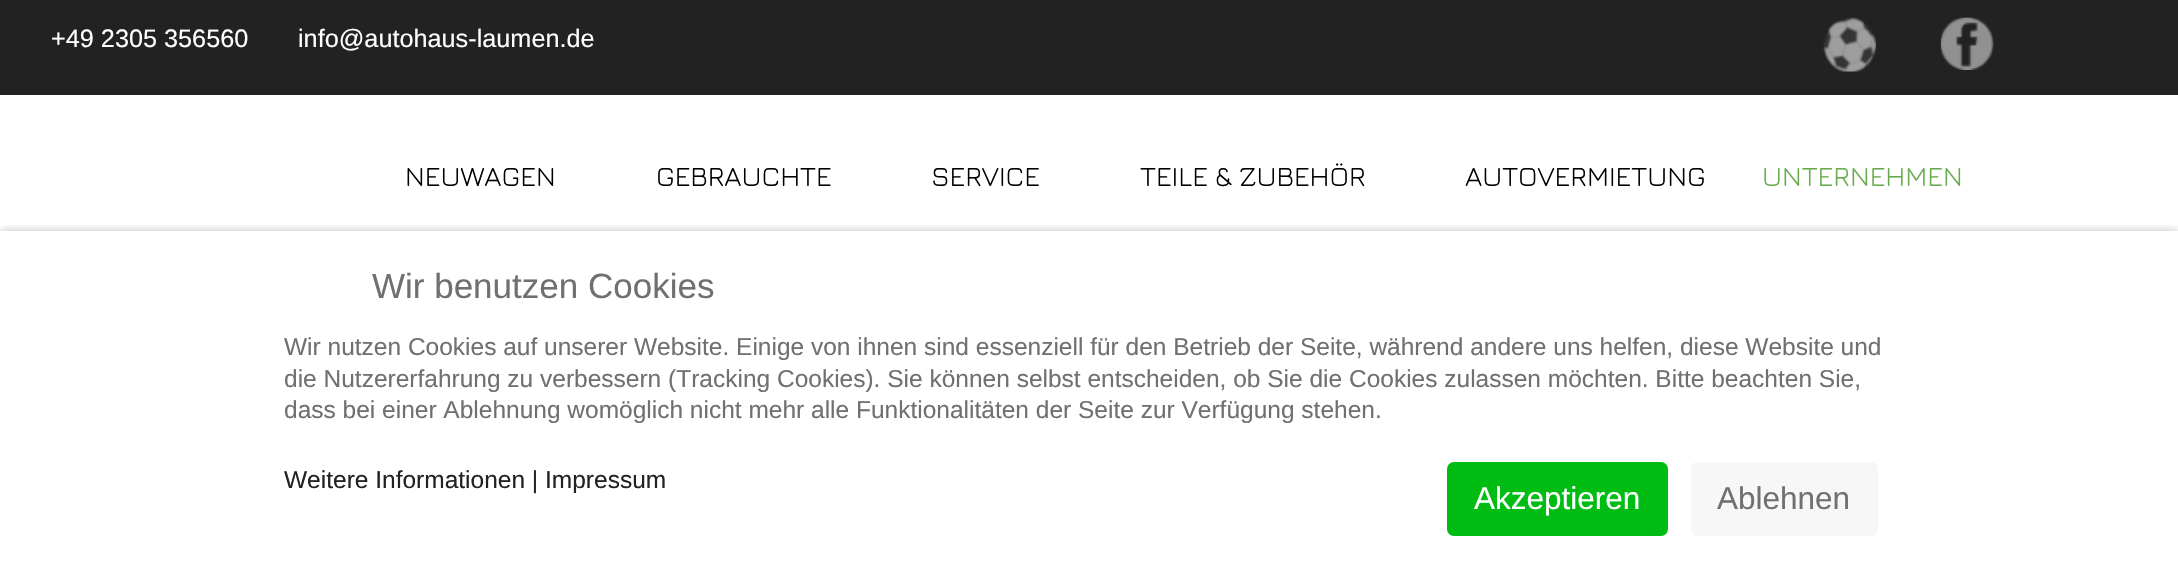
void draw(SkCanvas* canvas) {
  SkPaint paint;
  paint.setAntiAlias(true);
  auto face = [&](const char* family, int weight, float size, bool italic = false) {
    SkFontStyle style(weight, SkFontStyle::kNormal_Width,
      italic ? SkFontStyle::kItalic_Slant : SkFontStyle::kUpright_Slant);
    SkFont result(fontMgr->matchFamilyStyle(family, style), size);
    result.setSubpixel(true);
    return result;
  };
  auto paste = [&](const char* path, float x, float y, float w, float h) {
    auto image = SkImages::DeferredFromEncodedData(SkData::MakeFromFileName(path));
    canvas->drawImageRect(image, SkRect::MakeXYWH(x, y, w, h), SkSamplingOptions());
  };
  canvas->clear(0xffffffff);
  paint.setColor(0xff222222);
  canvas->drawRect(SkRect::MakeXYWH(0, 0, 2178, 95), paint);
  paste("img/1.png", 1823, 17, 53, 55);
  paste("img/2.png", 1940, 17, 54, 53);
  canvas->save();
  canvas->clipRect(SkRect::MakeXYWH(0, 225, 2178, 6));
  paint.setColor(0x40000000);
  paint.setMaskFilter(SkMaskFilter::MakeBlur(kNormal_SkBlurStyle, 4.5f));
  canvas->drawRect(SkRect::MakeXYWH(0, 231, 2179, 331), paint);
  paint.setMaskFilter(nullptr);
  canvas->restore();
  paint.setColor(0xff00bc13);
  canvas->drawRoundRect(SkRect::MakeXYWH(1447, 462, 221, 74), 7, 7, paint);
  paint.setColor(0xfff7f7f7);
  canvas->drawRoundRect(SkRect::MakeXYWH(1691, 462, 187, 74), 7, 7, paint);
  auto f0 = face("Liberation Sans", 400, 25.25f);
  paint.setColor(0xffffffff);
  canvas->drawString("+49 2305 356560", 51, 47, f0, paint);
  canvas->drawString("info@autohaus-laumen.de", 298, 47, f0, paint);
  auto f1 = face("Jura", 400, 28);
  paint.setColor(0xff000000);
  {
    const struct { const char* s; float x, y; } items[] = {
      {"NEUWAGEN", 405, 186},
      {"GEBRAUCHTE", 656, 186},
      {"SERVICE", 931, 186},
      {"TEILE & ZUBEHÖR", 1140, 186},
      {"AUTOVERMIETUNG", 1465, 186},
    };
    for (auto [s, x, y] : items) {
      canvas->drawString(s, x, y, f1, paint);
    }
  }
  paint.setColor(0xff68ab4e);
  canvas->drawString("UNTERNEHMEN", 1762, 186, f1, paint);
  auto f2 = face("Liberation Sans", 400, 35);
  paint.setColor(0xff707070);
  canvas->drawString("Wir benutzen Cookies", 372, 298, f2, paint);
  auto f3 = face("Liberation Sans", 400, 24.5f);
  {
    const struct { const char* s; float x, y; } items[] = {
      {"Wir nutzen Cookies auf unserer Website. Einige von ihnen sind essenziell für den Betrieb der Seite, während andere uns helfen, diese Website und", 284, 355},
      {"die Nutzererfahrung zu verbessern (Tracking Cookies). Sie können selbst entscheiden, ob Sie die Cookies zulassen möchten. Bitte beachten Sie,", 284, 387},
      {"dass bei einer Ablehnung womöglich nicht mehr alle Funktionalitäten der Seite zur Verfügung stehen.", 284, 418},
    };
    for (auto [s, x, y] : items) {
      canvas->drawString(s, x, y, f3, paint);
    }
  }
  paint.setColor(0xff222222);
  canvas->drawString("Weitere Informationen | Impressum", 284, 488, f3, paint);
  auto f4 = face("Liberation Sans", 400, 31.5f);
  paint.setColor(0xffffffff);
  canvas->drawString("Akzeptieren", 1474, 509, f4, paint);
  paint.setColor(0xff707070);
  canvas->drawString("Ablehnen", 1717, 509, f4, paint);
}
